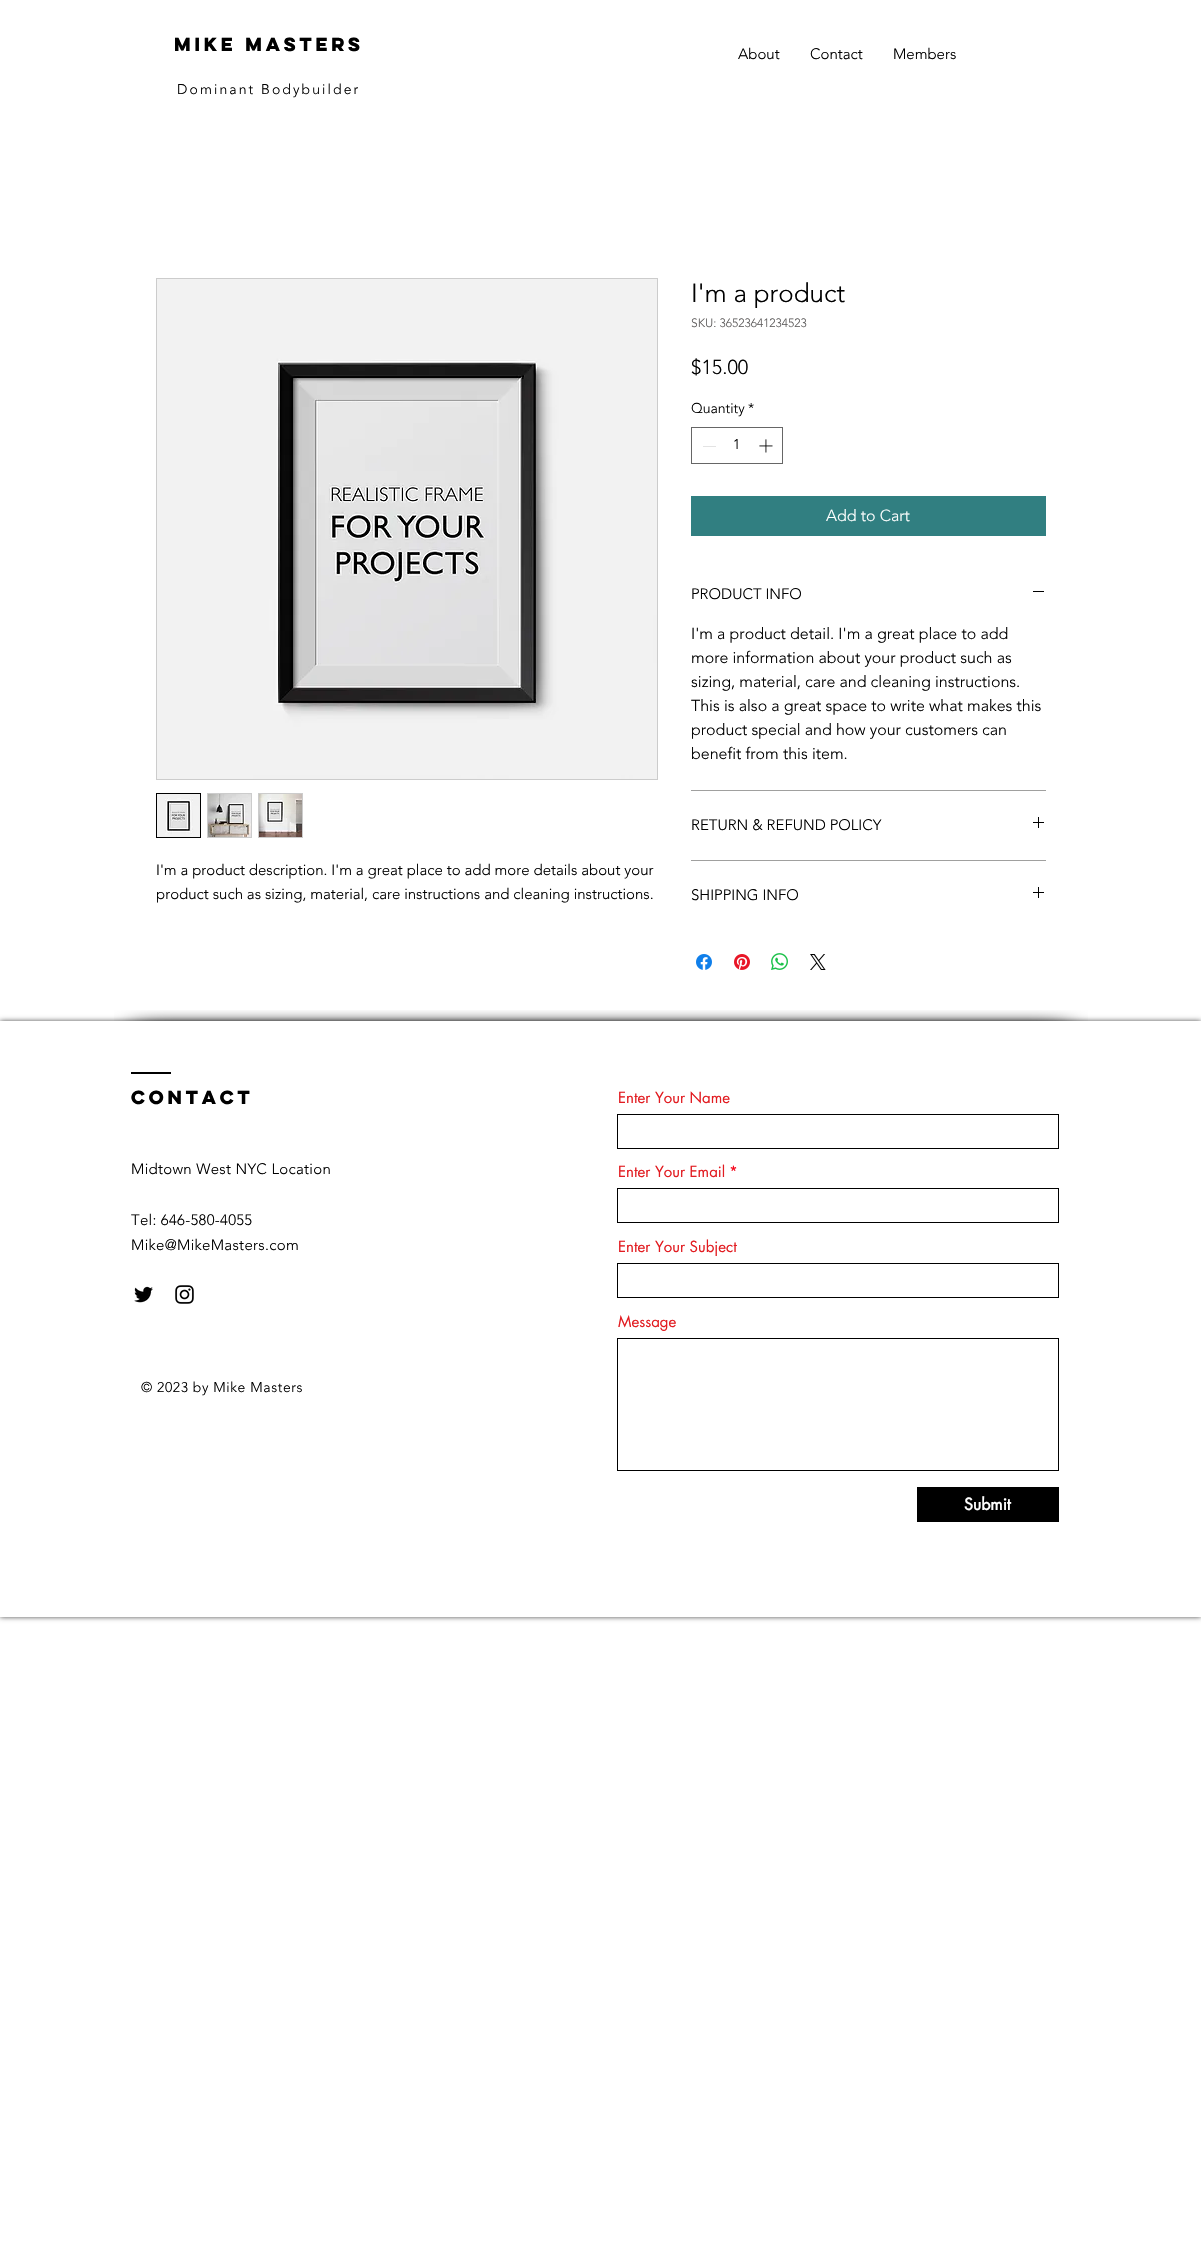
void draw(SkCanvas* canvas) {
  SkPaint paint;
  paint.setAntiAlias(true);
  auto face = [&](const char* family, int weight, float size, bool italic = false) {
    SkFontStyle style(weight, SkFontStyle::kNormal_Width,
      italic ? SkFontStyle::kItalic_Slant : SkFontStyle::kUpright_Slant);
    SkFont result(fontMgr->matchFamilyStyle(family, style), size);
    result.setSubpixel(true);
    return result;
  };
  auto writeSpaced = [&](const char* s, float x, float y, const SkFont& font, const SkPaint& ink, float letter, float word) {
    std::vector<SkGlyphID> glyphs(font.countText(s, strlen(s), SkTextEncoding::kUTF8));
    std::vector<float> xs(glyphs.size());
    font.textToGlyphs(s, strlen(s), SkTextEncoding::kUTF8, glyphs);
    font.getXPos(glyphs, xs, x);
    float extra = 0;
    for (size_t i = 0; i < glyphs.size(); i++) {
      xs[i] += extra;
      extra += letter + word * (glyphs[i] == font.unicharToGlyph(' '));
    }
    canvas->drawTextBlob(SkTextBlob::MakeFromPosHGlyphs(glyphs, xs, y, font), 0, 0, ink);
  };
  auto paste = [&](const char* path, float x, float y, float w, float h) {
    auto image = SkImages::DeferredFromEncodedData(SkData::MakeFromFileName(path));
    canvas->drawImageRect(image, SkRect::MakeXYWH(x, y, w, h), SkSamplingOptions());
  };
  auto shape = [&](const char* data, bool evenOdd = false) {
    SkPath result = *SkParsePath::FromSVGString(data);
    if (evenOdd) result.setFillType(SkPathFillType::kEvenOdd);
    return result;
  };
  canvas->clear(0xffffffff);
  paint.setStroke(true);
  paint.setStrokeWidth(1);
  paint.setColor(0xffcccccc);
  canvas->drawRect(SkRect::MakeXYWH(156.5f, 278.5f, 501, 501), paint);
  paste("img/1.png", 157, 279, 500, 500);
  paint.setColor(0xff000000);
  canvas->drawRect(SkRect::MakeXYWH(156.5f, 793.5f, 44, 44), paint);
  paste("img/2.png", 157, 794, 43, 43);
  paint.setColor(0xffcccccc);
  canvas->drawRect(SkRect::MakeXYWH(207.5f, 793.5f, 44, 44), paint);
  paste("img/3.png", 208, 794, 43, 43);
  canvas->drawRect(SkRect::MakeXYWH(258.5f, 793.5f, 44, 44), paint);
  paste("img/4.png", 259, 794, 43, 43);
  paint.setColor(0xff666666);
  canvas->drawRect(SkRect::MakeXYWH(691.5f, 427.5f, 91, 36), paint);
  paint.setStroke(false);
  paint.setColor(0xffe3e3e3);
  canvas->drawRect(SkRect::MakeXYWH(703, 446, 13, 1), paint);
  paste("img/5.png", 759, 439, 14, 14);
  {
    const struct { float x, y, w, h; SkColor color; } items[] = {
      {691, 496, 355, 40, 0xff317f81},
      {691, 790, 355, 1, 0xffa0a09f},
      {1033, 591, 11, 1, 0xff000000},
      {691, 860, 355, 1, 0xffa0a09f},
    };
    for (auto [x, y, w, h, color] : items) {
      paint.setColor(color);
      canvas->drawRect(SkRect::MakeXYWH(x, y, w, h), paint);
    }
  }
  paste("img/6.png", 1033, 817, 11, 11);
  paste("img/6.png", 1033, 887, 11, 11);
  paste("img/7.png", 696, 954, 16, 16);
  paste("img/8.png", 734, 954, 16, 16);
  paste("img/9.png", 771, 953, 17, 17);
  paste("img/10.png", 810, 954, 16, 16);
  canvas->save();
  canvas->clipPath(shape("M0 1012H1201V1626H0ZM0 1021H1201V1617H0Z", true), true);
  paint.setColor(0xb3000000);
  paint.setMaskFilter(SkMaskFilter::MakeBlur(kNormal_SkBlurStyle, 2.5f));
  canvas->drawRect(SkRect::MakeXYWH(0, 1021, 1201, 596), paint);
  paint.setMaskFilter(nullptr);
  canvas->restore();
  paste("img/11.png", 114, 1010, 97, 11);
  paste("img/12.png", 211, 1010, 780, 11);
  paste("img/13.png", 991, 1010, 97, 11);
  paint.setColor(0xff000000);
  canvas->drawRect(SkRect::MakeXYWH(131, 1072, 40, 2), paint);
  paint.setStroke(true);
  canvas->drawRect(SkRect::MakeXYWH(617.5f, 1114.5f, 441, 34), paint);
  canvas->drawRect(SkRect::MakeXYWH(617.5f, 1188.5f, 441, 34), paint);
  canvas->drawRect(SkRect::MakeXYWH(617.5f, 1263.5f, 441, 34), paint);
  canvas->drawRect(SkRect::MakeXYWH(617.5f, 1338.5f, 441, 132), paint);
  paint.setStroke(false);
  canvas->drawRect(SkRect::MakeXYWH(917, 1487, 142, 35), paint);
  paste("img/14.png", 134, 1286, 19, 17);
  paste("img/15.png", 175, 1285, 19, 19);
  auto f0 = face("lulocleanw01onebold", 700, 17);
  canvas->drawString("MIKE MASTERS", 174, 51, f0, paint);
  auto f1 = face("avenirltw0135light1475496", 300, 15);
  {
    const struct { const char* s; float x, y; } items[] = {
      {"About", 738, 59},
      {"Contact", 810, 59},
      {"Members", 893, 59},
    };
    for (auto [s, x, y] : items) {
      canvas->drawString(s, x, y, f1, paint);
    }
  }
  auto f2 = face("avenirltw0135light1475496", 300, 14);
  writeSpaced("Dominant Bodybuilder", 177, 94, f2, paint, 2.1f, 0);
  canvas->drawString("I'm a product description. I'm a great place to add more details about your", 156, 875, f1, paint);
  canvas->drawString("product such as sizing, material, care instructions and cleaning instructions.", 156, 899, f1, paint);
  auto f3 = face("avenirltw0135light1475496", 300, 26);
  canvas->drawString("I'm a product", 691, 302, f3, paint);
  auto f4 = face("avenirltw0135light1475496", 300, 12);
  paint.setColor(0xff605e5e);
  canvas->drawString("SKU: 36523641234523", 691, 327, f4, paint);
  auto f5 = face("avenirltw0135light1475496", 300, 20);
  paint.setColor(0xff000000);
  canvas->drawString("$15.00", 691, 374, f5, paint);
  {
    const struct { const char* s; float x, y; } items[] = {
      {"Quantity", 691, 413},
      {"*", 748, 413},
      {"1", 733, 449},
    };
    for (auto [s, x, y] : items) {
      canvas->drawString(s, x, y, f2, paint);
    }
  }
  auto f6 = face("avenirltw0135light1475496", 300, 16);
  paint.setColor(0xffffffff);
  canvas->drawString("Add to Cart", 826, 521, f6, paint);
  paint.setColor(0xff000000);
  canvas->drawString("PRODUCT INFO", 691, 599, f1, paint);
  {
    const struct { const char* s; float x, y; } items[] = {
      {"I'm a product detail. I'm a great place to add", 691, 639},
      {"more information about your product such as", 691, 663},
      {"sizing, material, care and cleaning instructions.", 691, 687},
      {"This is also a great space to write what makes this", 691, 711},
      {"product special and how your customers can", 691, 735},
      {"benefit from this item.", 691, 759},
    };
    for (auto [s, x, y] : items) {
      canvas->drawString(s, x, y, f6, paint);
    }
  }
  canvas->drawString("RETURN & REFUND POLICY", 691, 830, f1, paint);
  canvas->drawString("SHIPPING INFO", 691, 900, f1, paint);
  canvas->drawString("Contact", 131, 1104, f0, paint);
  auto f7 = face("futura", 400, 15);
  paint.setColor(0xffe21c21);
  canvas->drawString("Enter Your Name", 618, 1103, f7, paint);
  canvas->drawString("Enter Your Email", 618, 1177, f7, paint);
  paint.setColor(0xfff60419);
  canvas->drawString("*", 729, 1177, f7, paint);
  paint.setColor(0xffe21c21);
  canvas->drawString("Enter Your Subject", 618, 1252, f7, paint);
  canvas->drawString("Message", 618, 1327, f7, paint);
  auto f8 = face("futura", 700, 16);
  paint.setColor(0xffffffff);
  canvas->drawString("Submit", 964, 1510, f8, paint);
  paint.setColor(0xff000000);
  {
    const struct { const char* s; float x, y; } items[] = {
      {"Midtown West NYC Location", 131, 1174},
      {"Tel: 646-580-4055", 131, 1225},
      {"Mike@MikeMasters.com", 131, 1250},
    };
    for (auto [s, x, y] : items) {
      writeSpaced(s, x, y, f1, paint, 0.3f, 0);
    }
  }
  writeSpaced("© 2023 by Mike Masters", 141, 1392, f2, paint, 0.6f, 0);
}
